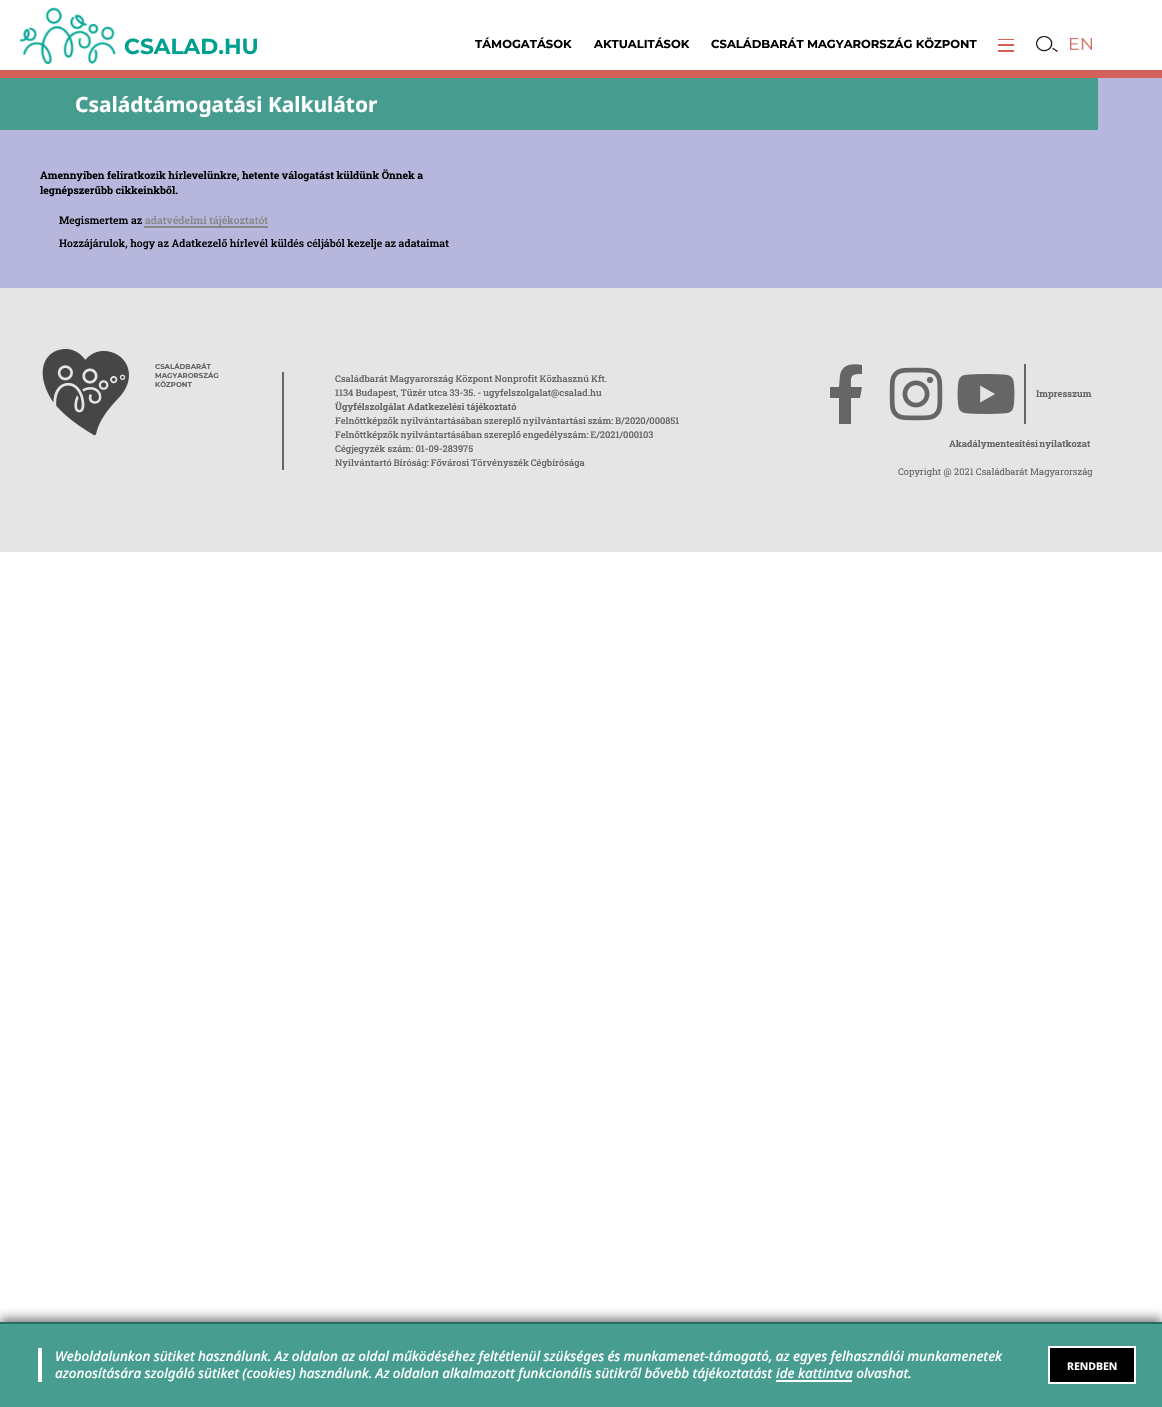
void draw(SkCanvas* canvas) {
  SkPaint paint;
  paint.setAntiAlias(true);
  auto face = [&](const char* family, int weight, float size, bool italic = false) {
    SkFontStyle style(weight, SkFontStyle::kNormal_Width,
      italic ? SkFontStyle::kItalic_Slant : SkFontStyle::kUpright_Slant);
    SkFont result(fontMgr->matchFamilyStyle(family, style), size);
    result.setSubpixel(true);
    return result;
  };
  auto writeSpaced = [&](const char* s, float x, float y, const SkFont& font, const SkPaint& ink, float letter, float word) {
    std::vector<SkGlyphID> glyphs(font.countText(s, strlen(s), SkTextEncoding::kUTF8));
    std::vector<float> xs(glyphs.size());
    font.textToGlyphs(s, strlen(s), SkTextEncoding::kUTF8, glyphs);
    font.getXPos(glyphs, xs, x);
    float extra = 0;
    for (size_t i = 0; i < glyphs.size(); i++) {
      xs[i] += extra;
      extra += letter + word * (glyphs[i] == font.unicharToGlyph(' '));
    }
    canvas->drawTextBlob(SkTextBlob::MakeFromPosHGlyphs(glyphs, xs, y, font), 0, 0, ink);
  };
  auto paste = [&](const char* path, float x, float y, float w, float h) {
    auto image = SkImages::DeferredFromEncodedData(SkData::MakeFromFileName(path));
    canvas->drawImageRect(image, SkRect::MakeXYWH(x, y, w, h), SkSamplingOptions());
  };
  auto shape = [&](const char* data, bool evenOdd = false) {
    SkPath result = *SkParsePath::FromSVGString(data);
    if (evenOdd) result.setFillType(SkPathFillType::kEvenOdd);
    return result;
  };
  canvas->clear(0xffffffff);
  paint.setColor(0xffd46159);
  canvas->drawRect(SkRect::MakeXYWH(0, 70, 1162, 8), paint);
  paste("img/1.png", 19, 7, 97, 57);
  {
    const struct { float x, y, w, h; SkColor color; } items[] = {
      {998, 39, 16, 1, 0xffd46159},
      {998, 44, 16, 2, 0xffd46159},
      {998, 50, 16, 2, 0xffd46159},
    };
    for (auto [x, y, w, h, color] : items) {
      paint.setColor(color);
      canvas->drawRect(SkRect::MakeXYWH(x, y, w, h), paint);
    }
  }
  paste("img/2.png", 1036, 36, 22, 16);
  paste("img/3.png", 1070, 38, 22, 12);
  {
    const struct { float x, y, w, h; SkColor color; } items[] = {
      {0, 78, 1162, 210, 0xffb7b7dd},
      {0, 78, 1098, 52, 0xff469d8f},
      {144, 226, 124, 2, 0xff878787},
      {0, 288, 1162, 264, 0xffe5e5e5},
    };
    for (auto [x, y, w, h, color] : items) {
      paint.setColor(color);
      canvas->drawRect(SkRect::MakeXYWH(x, y, w, h), paint);
    }
  }
  paste("img/4.png", 42, 348, 87, 88);
  paint.setColor(0xff666666);
  canvas->drawRect(SkRect::MakeXYWH(282, 372, 2, 98), paint);
  canvas->drawPath(shape("M860 398L862 387H851C851 376 850 374 862 374V365C853 363 842 364 840 375L839 387H830V398H839V424H851V398Z"), paint);
  paste("img/5.png", 889, 367, 54, 54);
  paste("img/6.png", 957, 374, 58, 40);
  canvas->drawRect(SkRect::MakeXYWH(1024, 364, 2, 60), paint);
  paint.setColor(0x80000000);
  paint.setMaskFilter(SkMaskFilter::MakeBlur(kNormal_SkBlurStyle, 5));
  canvas->drawRect(SkRect::MakeXYWH(0, 1318, 1162, 86), paint);
  paint.setMaskFilter(nullptr);
  {
    const struct { float x, y, w, h; SkColor color; } items[] = {
      {0, 1324, 1162, 83, 0xff469d90},
      {0, 1322, 1162, 2, 0xff266d60},
      {38, 1348, 4, 34, 0xffffffff},
      {776, 1380, 76, 2, 0xffffffff},
    };
    for (auto [x, y, w, h, color] : items) {
      paint.setColor(color);
      canvas->drawRect(SkRect::MakeXYWH(x, y, w, h), paint);
    }
  }
  paint.setColor(0xff000000);
  canvas->drawRect(SkRect::MakeXYWH(1049, 1347, 86, 36), paint);
  paint.setStroke(true);
  paint.setStrokeWidth(2);
  paint.setColor(0xffffffff);
  canvas->drawRect(SkRect::MakeXYWH(1049, 1347, 86, 36), paint);
  auto f0 = face("Montserrat", 100, 21.75f);
  paint.setStroke(false);
  paint.setColor(0xff00a090);
  canvas->drawString("CSALAD.HU", 124, 54, f0, paint);
  auto f1 = face("Montserrat", 100, 11.6f);
  paint.setColor(0xff000000);
  {
    const struct { const char* s; float x, y; } items[] = {
      {"TÁMOGATÁSOK", 475, 48},
      {"AKTUALITÁSOK", 594, 48},
      {"CSALÁDBARÁT MAGYARORSZÁG KÖZPONT", 711, 48},
    };
    for (auto [s, x, y] : items) {
      canvas->drawString(s, x, y, f1, paint);
    }
  }
  auto f2 = face("Noto Sans", 700, 20.9f);
  paint.setColor(0xffffffff);
  canvas->drawString("Családtámogatási Kalkulátor", 75, 112, f2, paint);
  auto f3 = face("Roboto Slab", 700, 10.45f);
  paint.setColor(0xff000000);
  canvas->drawString("Amennyiben feliratkozik hírlevelünkre, hetente válogatást küldünk Önnek a", 40, 179, f3, paint);
  canvas->drawString("legnépszerűbb cikkeinkből.", 40, 194, f3, paint);
  auto f4 = face("Roboto Slab", 500, 10.45f);
  canvas->drawString("Megismertem az", 59, 224, f4, paint);
  paint.setColor(0xff878787);
  canvas->drawString("adatvédelmi tájékoztatót", 145, 224, f4, paint);
  paint.setColor(0xff000000);
  canvas->drawString("Hozzájárulok, hogy az Adatkezelő hírlevél küldés céljából kezelje az adataimat", 59, 247, f4, paint);
  auto f5 = face("Montserrat", 100, 7);
  paint.setColor(0xff666666);
  {
    const struct { const char* s; float x, y; } items[] = {
      {"CSALÁDBARÁT", 155, 369},
      {"MAGYARORSZÁG", 155, 378},
      {"KÖZPONT", 155, 387},
    };
    for (auto [s, x, y] : items) {
      canvas->drawString(s, x, y, f5, paint);
    }
  }
  auto f6 = face("Roboto Slab", 500, 9.3f);
  writeSpaced("Családbarát Magyarország Központ Nonprofit Közhasznú Kft.", 335, 382, f6, paint, 0, -0.25f);
  writeSpaced("1134 Budapest, Tüzér utca 33-35. - ugyfelszolgalat@csalad.hu", 335, 396, f6, paint, 0, -0.25f);
  auto f7 = face("Roboto Slab", 700, 9.3f);
  canvas->drawString("Ügyfélszolgálat Adatkezelési tájékoztató", 335, 410, f7, paint);
  writeSpaced("Felnőttképzők nyilvántartásában szereplő nyilvántartási szám: B/2020/000851", 335, 424, f6, paint, 0, -0.5f);
  writeSpaced("Felnőttképzők nyilvántartásában szereplő engedélyszám: E/2021/000103", 335, 438, f6, paint, 0, -0.5f);
  canvas->drawString("Cégjegyzék szám: 01-09-283975", 335, 452, f6, paint);
  writeSpaced("Nyilvántartó Bíróság: Fővárosi Törvényszék Cégbírósága", 335, 466, f6, paint, 0, -0.5f);
  canvas->drawString("Impresszum", 1036, 397, f7, paint);
  writeSpaced("Akadálymentesítési nyilatkozat", 949, 447, f7, paint, 0, -1);
  auto f8 = face("Roboto Slab", 400, 9.3f);
  canvas->drawString("Copyright @ 2021 Családbarát Magyarország", 898, 475, f8, paint);
  auto f9 = face("Noto Sans", 500, 13.48f, true);
  paint.setColor(0xffffffff);
  writeSpaced("Weboldalunkon sütiket használunk. Az oldalon az oldal működéséhez feltétlenül szükséges és munkamenet-támogató, az egyes felhasználói munkamenetek", 55, 1361, f9, paint, 0, -0.25f);
  writeSpaced("azonosítására szolgáló sütiket (cookies) használunk. Az oldalon alkalmazott funkcionális sütikről bővebb tájékoztatást", 55, 1378, f9, paint, 0, -0.25f);
  canvas->drawString("ide kattintva olvashat.", 776, 1378, f9, paint);
  auto f10 = face("Noto Sans", 700, 10.5f);
  canvas->drawString("RENDBEN", 1067, 1370, f10, paint);
}
